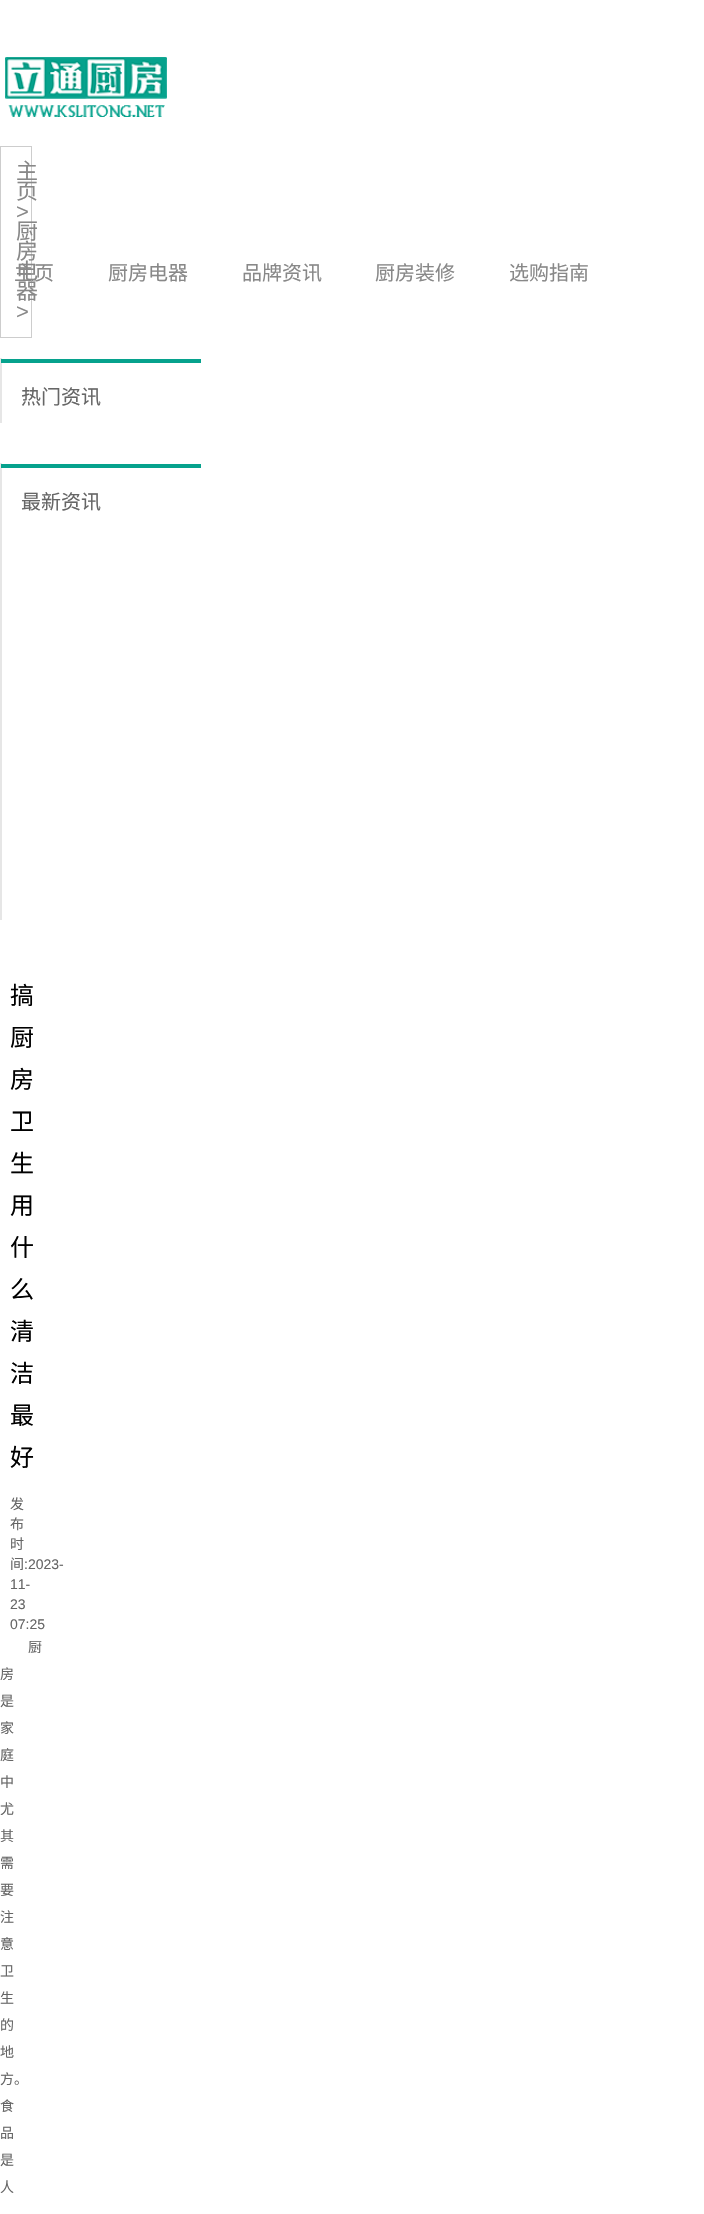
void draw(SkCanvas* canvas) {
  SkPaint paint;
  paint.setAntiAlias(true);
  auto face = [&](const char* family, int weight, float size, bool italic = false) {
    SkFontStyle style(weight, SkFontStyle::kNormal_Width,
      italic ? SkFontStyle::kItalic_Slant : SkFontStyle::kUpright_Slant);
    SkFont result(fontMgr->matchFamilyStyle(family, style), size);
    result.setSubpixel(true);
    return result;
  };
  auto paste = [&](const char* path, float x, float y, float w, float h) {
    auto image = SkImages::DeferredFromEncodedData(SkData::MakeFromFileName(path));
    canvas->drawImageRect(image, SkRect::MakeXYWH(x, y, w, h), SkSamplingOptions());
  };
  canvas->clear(0xffffffff);
  {
    const struct { float x, y, w, h; SkColor color; } items[] = {
      {0, 358, 2, 65, 0xffe6e6e6},
      {1, 359, 200, 4, 0xff06a28d},
      {0, 463, 2, 457, 0xffe6e6e6},
      {1, 464, 200, 4, 0xff06a28d},
    };
    for (auto [x, y, w, h, color] : items) {
      paint.setColor(color);
      canvas->drawRect(SkRect::MakeXYWH(x, y, w, h), paint);
    }
  }
  paste("img/1.png", 5, 57, 162, 60);
  auto f0 = face("Noto Sans CJK SC", 400, 20);
  paint.setColor(0xff666666);
  canvas->drawString("热门资讯", 21, 404, f0, paint);
  canvas->drawString("最新资讯", 21, 509, f0, paint);
  auto f1 = face("Noto Sans CJK SC", 400, 24);
  paint.setColor(0xff000000);
  {
    const struct { const char* s; float x, y; } items[] = {
      {"搞", 10, 1004},
      {"厨", 10, 1046},
      {"房", 10, 1088},
      {"卫", 10, 1130},
      {"生", 10, 1172},
      {"用", 10, 1214},
      {"什", 10, 1256},
      {"么", 10, 1298},
      {"清", 10, 1340},
      {"洁", 10, 1382},
      {"最", 10, 1424},
      {"好", 10, 1466},
    };
    for (auto [s, x, y] : items) {
      canvas->drawString(s, x, y, f1, paint);
    }
  }
  auto f2 = face("Noto Sans CJK SC", 400, 14);
  paint.setColor(0xff666666);
  {
    const struct { const char* s; float x, y; } items[] = {
      {"发", 10, 1509},
      {"布", 10, 1529},
      {"时", 10, 1549},
      {"间", 10, 1569},
    };
    for (auto [s, x, y] : items) {
      canvas->drawString(s, x, y, f2, paint);
    }
  }
  auto f3 = face("Liberation Sans", 400, 14);
  {
    const struct { const char* s; float x, y; } items[] = {
      {":2023-", 24, 1569},
      {"11-", 10, 1589},
      {"23", 10, 1609},
      {"07:25", 10, 1629},
    };
    for (auto [s, x, y] : items) {
      canvas->drawString(s, x, y, f3, paint);
    }
  }
  {
    const struct { const char* s; float x, y; } items[] = {
      {"厨", 28, 1652},
      {"房", 0, 1679},
      {"是", 0, 1706},
      {"家", 0, 1733},
      {"庭", 0, 1760},
      {"中", 0, 1787},
      {"尤", 0, 1814},
      {"其", 0, 1841},
      {"需", 0, 1868},
      {"要", 0, 1895},
      {"注", 0, 1922},
      {"意", 0, 1949},
      {"卫", 0, 1976},
      {"生", 0, 2003},
      {"的", 0, 2030},
      {"地", 0, 2057},
      {"方。", 0, 2084},
      {"食", 0, 2111},
      {"品", 0, 2138},
      {"是", 0, 2165},
      {"人", 0, 2192},
    };
    for (auto [s, x, y] : items) {
      canvas->drawString(s, x, y, f2, paint);
    }
  }
  paint.setColor(0xff888888);
  canvas->drawString("主页", 14, 280, f0, paint);
  paint.setStroke(true);
  paint.setStrokeWidth(1);
  paint.setColor(0xffcdcdcd);
  canvas->drawRect(SkRect::MakeXYWH(0.5f, 146.5f, 31, 191), paint);
  auto f4 = face("Liberation Sans", 400, 22);
  paint.setStroke(false);
  paint.setColor(0xff888888);
  canvas->drawString(">", 16, 319, f4, paint);
  auto f5 = face("Noto Sans CJK SC", 400, 22);
  {
    const struct { const char* s; float x, y; } items[] = {
      {"器", 16, 299},
      {"电", 16, 279},
      {"房", 16, 259},
      {"厨", 16, 239},
    };
    for (auto [s, x, y] : items) {
      canvas->drawString(s, x, y, f5, paint);
    }
  }
  canvas->drawString(">", 16, 219, f4, paint);
  canvas->drawString("页", 16, 199, f5, paint);
  canvas->drawString("主", 16, 179, f5, paint);
  {
    const struct { const char* s; float x, y; } items[] = {
      {"厨房电器", 108, 280},
      {"品牌资讯", 242, 280},
      {"厨房装修", 375, 280},
      {"选购指南", 509, 280},
    };
    for (auto [s, x, y] : items) {
      canvas->drawString(s, x, y, f0, paint);
    }
  }
}
